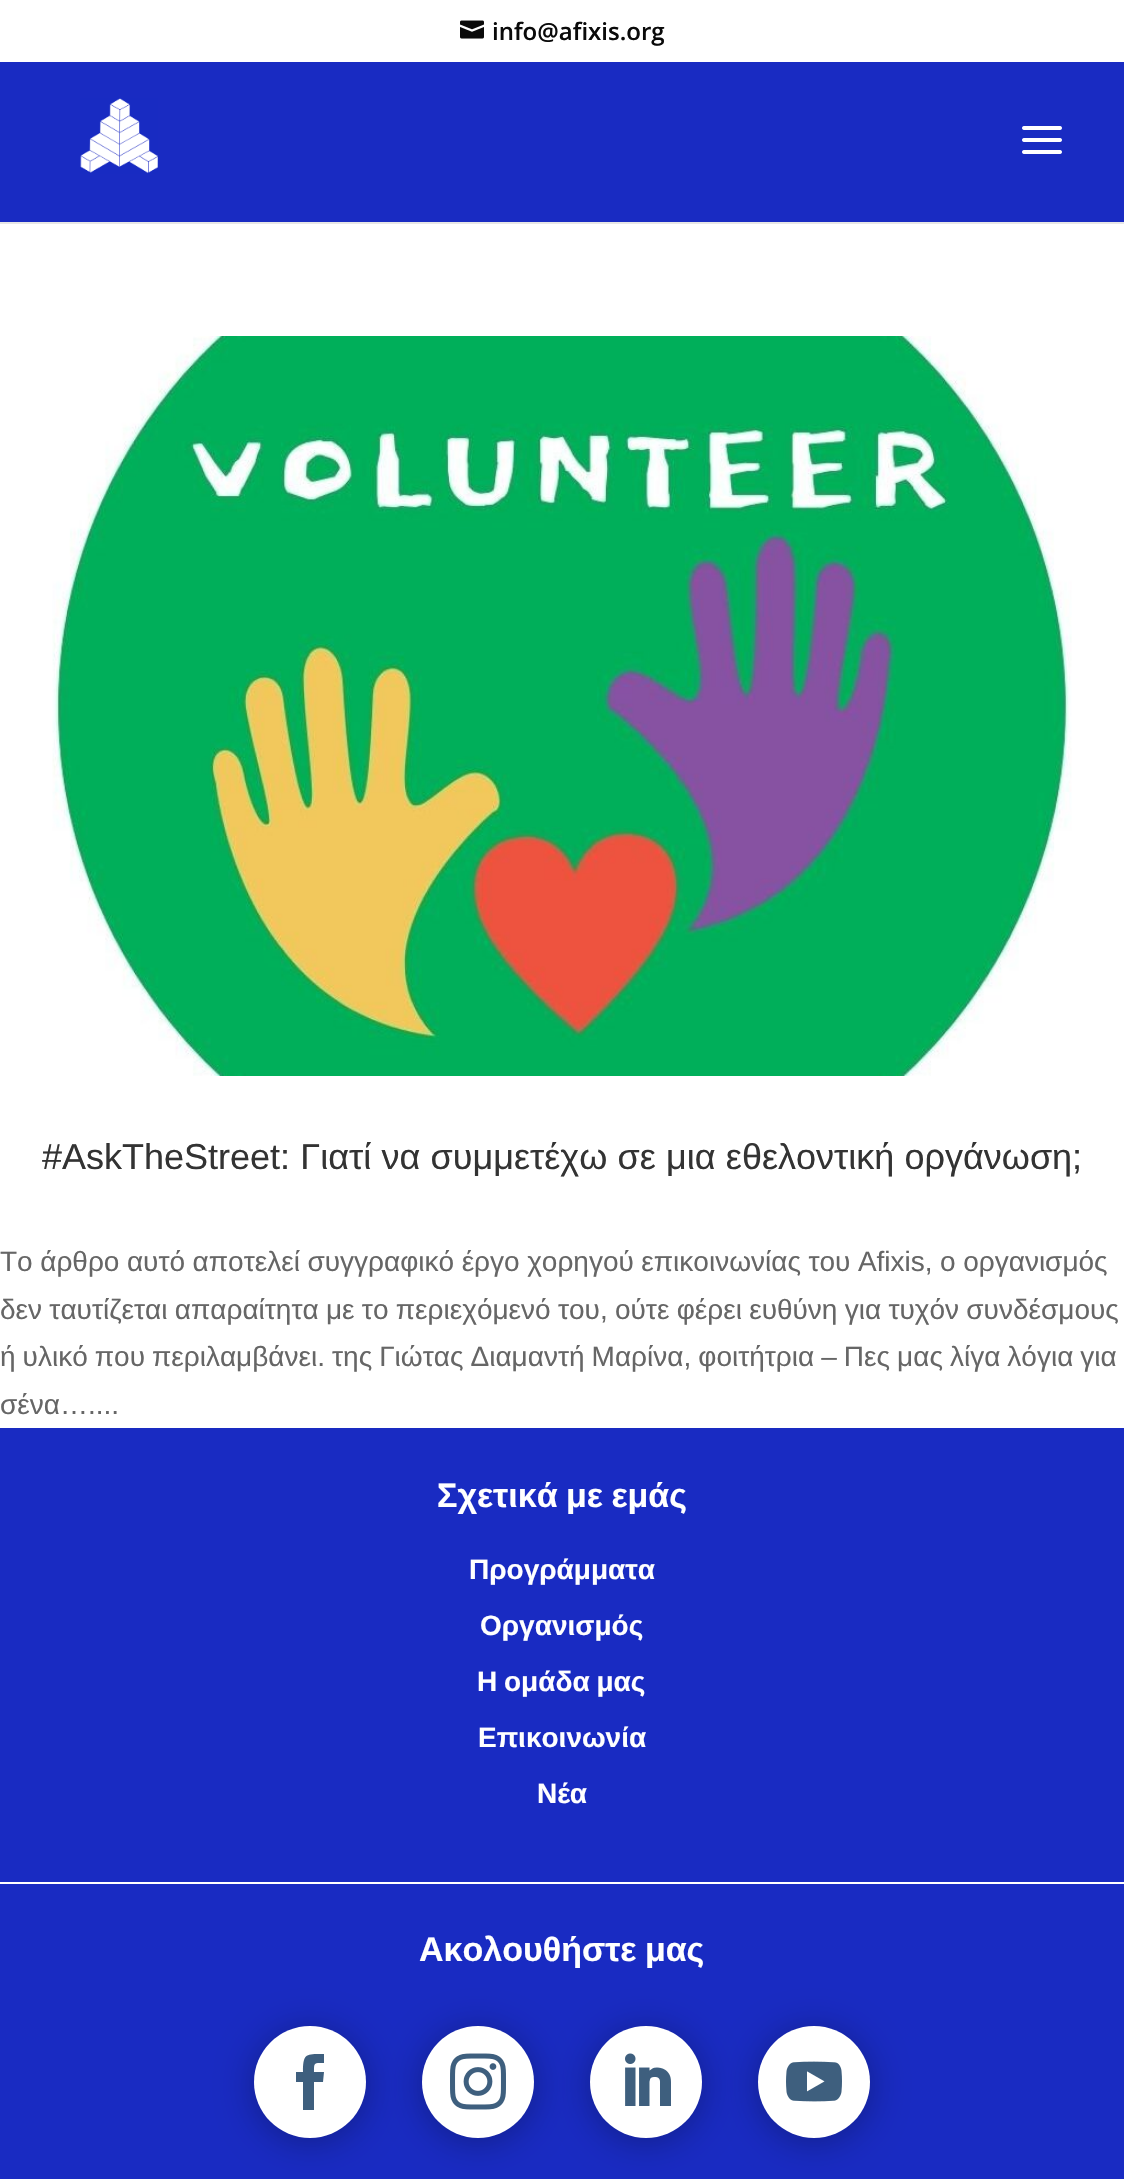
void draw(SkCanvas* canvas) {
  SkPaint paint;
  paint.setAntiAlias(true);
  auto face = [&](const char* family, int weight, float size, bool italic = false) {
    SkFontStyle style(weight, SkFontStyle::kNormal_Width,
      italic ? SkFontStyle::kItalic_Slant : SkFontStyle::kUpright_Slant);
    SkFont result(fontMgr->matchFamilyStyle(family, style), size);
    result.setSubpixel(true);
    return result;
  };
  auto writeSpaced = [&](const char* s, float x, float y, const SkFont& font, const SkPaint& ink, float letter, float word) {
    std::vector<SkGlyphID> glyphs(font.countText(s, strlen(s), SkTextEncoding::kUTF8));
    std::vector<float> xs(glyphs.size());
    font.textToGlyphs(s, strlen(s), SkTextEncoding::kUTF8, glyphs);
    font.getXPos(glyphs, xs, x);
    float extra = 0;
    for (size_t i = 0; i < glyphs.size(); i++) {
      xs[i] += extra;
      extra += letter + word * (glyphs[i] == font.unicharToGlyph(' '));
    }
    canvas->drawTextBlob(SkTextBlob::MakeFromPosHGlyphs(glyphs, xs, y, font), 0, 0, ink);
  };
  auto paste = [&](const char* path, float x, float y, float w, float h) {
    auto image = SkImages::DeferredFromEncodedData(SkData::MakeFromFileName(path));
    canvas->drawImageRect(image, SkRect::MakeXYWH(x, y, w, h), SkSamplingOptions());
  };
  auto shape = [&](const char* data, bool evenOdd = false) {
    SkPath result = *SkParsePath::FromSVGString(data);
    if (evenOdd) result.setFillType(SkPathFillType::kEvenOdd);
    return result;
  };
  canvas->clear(0xffffffff);
  paste("img/1.png", 460, 20, 24, 19);
  paint.setColor(0xffe6e6e6);
  canvas->drawRect(SkRect::MakeXYWH(0, 222, 1124, 2), paint);
  paint.setColor(0xff192bc2);
  canvas->drawRect(SkRect::MakeXYWH(0, 62, 1124, 160), paint);
  paste("img/2.png", 80, 98, 78, 76);
  paste("img/3.png", 1022, 126, 40, 28);
  paste("img/4.png", 52, 336, 1020, 740);
  canvas->drawRect(SkRect::MakeXYWH(0, 1428, 1124, 751), paint);
  paint.setColor(0xffffffff);
  canvas->drawRect(SkRect::MakeXYWH(0, 1882, 1124, 2), paint);
  paint.setColor(0x4d000000);
  paint.setMaskFilter(SkMaskFilter::MakeBlur(kNormal_SkBlurStyle, 18));
  canvas->drawRoundRect(SkRect::MakeXYWH(254, 2030, 112, 112), 56, 56, paint);
  paint.setMaskFilter(nullptr);
  paint.setColor(0xffffffff);
  canvas->drawCircle(310, 2082, 56, paint);
  paint.setColor(0xff3e5f7e);
  canvas->drawPath(shape("M303 2110H314V2082H323L324 2072H314C314 2062 314 2063 324 2063V2054C306 2054 303 2053 303 2072H296V2082H303Z"), paint);
  paint.setColor(0x4d000000);
  paint.setMaskFilter(SkMaskFilter::MakeBlur(kNormal_SkBlurStyle, 18));
  canvas->drawRoundRect(SkRect::MakeXYWH(422, 2030, 112, 112), 56, 56, paint);
  paint.setMaskFilter(nullptr);
  paint.setColor(0xffffffff);
  canvas->drawCircle(478, 2082, 56, paint);
  paste("img/5.png", 450, 2053, 56, 57);
  paint.setColor(0x4d000000);
  paint.setMaskFilter(SkMaskFilter::MakeBlur(kNormal_SkBlurStyle, 18));
  canvas->drawRoundRect(SkRect::MakeXYWH(590, 2030, 112, 112), 56, 56, paint);
  paint.setMaskFilter(nullptr);
  paint.setColor(0xffffffff);
  canvas->drawCircle(646, 2082, 56, paint);
  paste("img/6.png", 625, 2053, 46, 53);
  paint.setColor(0x4d000000);
  paint.setMaskFilter(SkMaskFilter::MakeBlur(kNormal_SkBlurStyle, 18));
  canvas->drawRoundRect(SkRect::MakeXYWH(758, 2030, 112, 112), 56, 56, paint);
  paint.setMaskFilter(nullptr);
  paint.setColor(0xffffffff);
  canvas->drawCircle(814, 2082, 56, paint);
  paste("img/7.png", 786, 2061, 56, 41);
  auto f0 = face("Open Sans", 600, 24);
  paint.setColor(0xff0a0a0a);
  canvas->drawString("info@afixis.org", 492, 40, f0, paint);
  auto f1 = face("Liberation Sans", 400, 36);
  paint.setColor(0xff333333);
  writeSpaced("#AskTheStreet: Γιατί να συμμετέχω σε μια εθελοντική οργάνωση;", 42, 1169, f1, paint, 0, 0.25f);
  auto f2 = face("Liberation Sans", 400, 28);
  paint.setColor(0xff666666);
  writeSpaced("Το άρθρο αυτό αποτελεί συγγραφικό έργο χορηγού επικοινωνίας του Afixis, ο οργανισμός", 0, 1271, f2, paint, 0, -0.25f);
  writeSpaced("δεν ταυτίζεται απαραίτητα με το περιεχόμενό του, ούτε φέρει ευθύνη για τυχόν συνδέσμους", 0, 1319, f2, paint, 0, -0.5f);
  writeSpaced("ή υλικό που περιλαμβάνει. της Γιώτας Διαμαντή Μαρίνα, φοιτήτρια – Πες μας λίγα λόγια για", 0, 1366, f2, paint, 0, -0.75f);
  canvas->drawString("σένα…....", 0, 1414, f2, paint);
  auto f3 = face("Liberation Sans", 700, 34);
  paint.setColor(0xffffffff);
  writeSpaced("Σχετικά με εμάς", 437, 1507, f3, paint, 0, -1);
  auto f4 = face("Liberation Sans", 700, 28);
  canvas->drawString("Προγράμματα", 469, 1579, f4, paint);
  canvas->drawString("Οργανισμός", 480, 1635, f4, paint);
  writeSpaced("Η ομάδα μας", 477, 1691, f4, paint, 0, -1);
  canvas->drawString("Επικοινωνία", 478, 1747, f4, paint);
  canvas->drawString("Νέα", 537, 1803, f4, paint);
  writeSpaced("Ακολουθήστε μας", 419, 1961, f3, paint, 0, -1);
}
